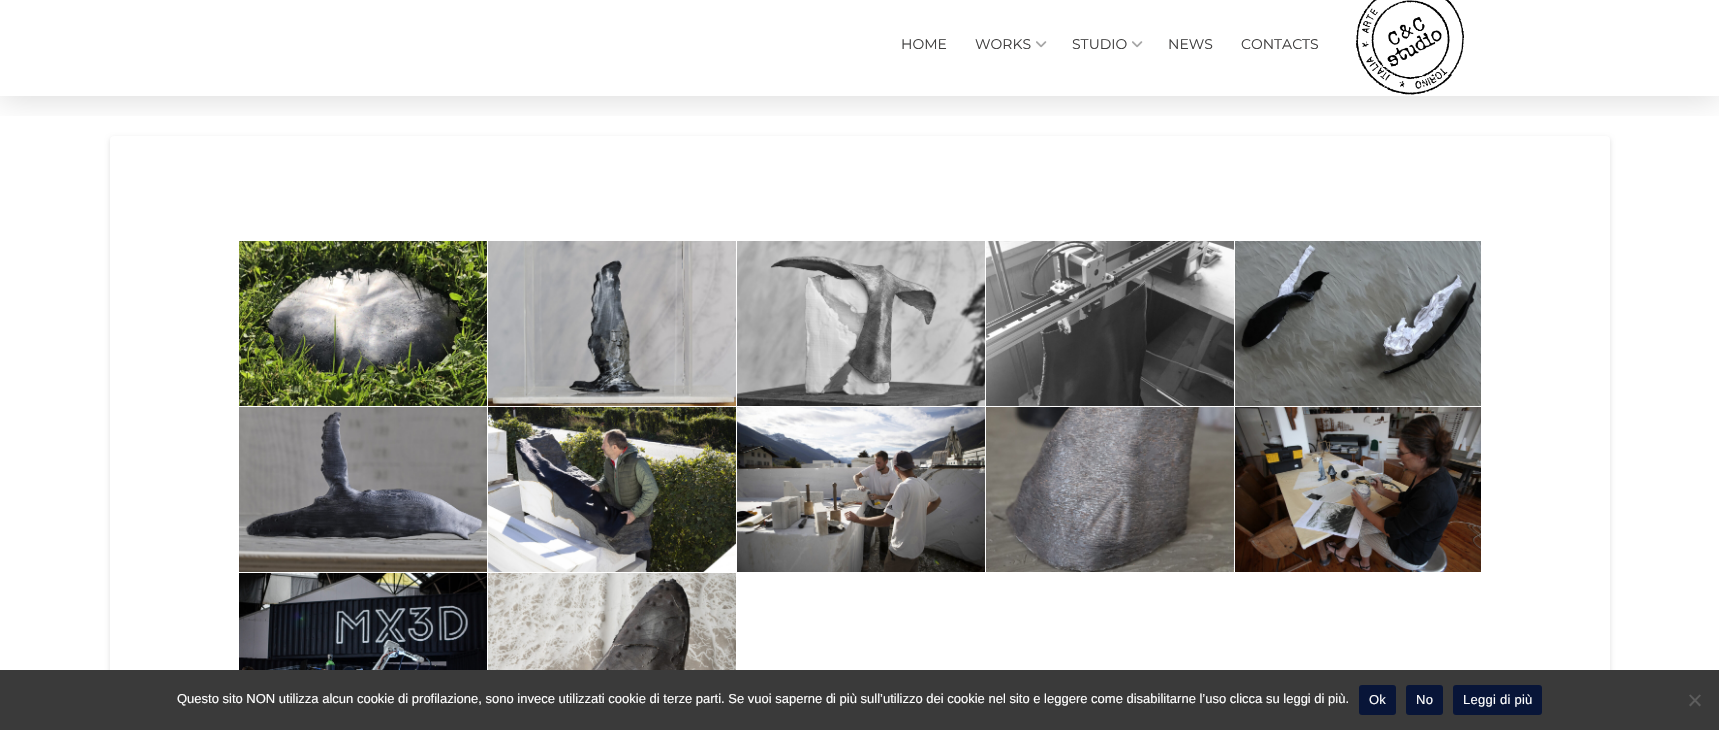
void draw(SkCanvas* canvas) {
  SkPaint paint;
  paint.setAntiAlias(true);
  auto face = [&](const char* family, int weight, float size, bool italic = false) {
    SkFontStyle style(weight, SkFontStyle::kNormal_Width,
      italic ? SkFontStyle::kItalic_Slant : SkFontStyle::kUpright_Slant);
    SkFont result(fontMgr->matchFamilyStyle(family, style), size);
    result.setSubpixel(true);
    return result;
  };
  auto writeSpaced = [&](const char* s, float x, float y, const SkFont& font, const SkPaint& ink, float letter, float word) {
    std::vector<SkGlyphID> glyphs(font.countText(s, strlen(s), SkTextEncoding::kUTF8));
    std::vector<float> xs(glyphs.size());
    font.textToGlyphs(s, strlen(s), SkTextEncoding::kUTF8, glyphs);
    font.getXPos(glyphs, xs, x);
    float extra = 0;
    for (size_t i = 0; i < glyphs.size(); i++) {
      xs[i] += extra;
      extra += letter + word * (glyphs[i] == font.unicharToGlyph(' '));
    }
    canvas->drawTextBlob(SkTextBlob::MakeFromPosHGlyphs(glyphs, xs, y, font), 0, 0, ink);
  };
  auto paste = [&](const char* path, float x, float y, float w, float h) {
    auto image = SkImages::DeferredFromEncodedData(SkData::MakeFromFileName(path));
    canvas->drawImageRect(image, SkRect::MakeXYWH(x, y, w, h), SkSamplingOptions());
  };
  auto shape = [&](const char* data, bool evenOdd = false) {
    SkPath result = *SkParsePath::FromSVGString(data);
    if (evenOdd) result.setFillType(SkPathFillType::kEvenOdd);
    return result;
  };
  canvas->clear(0xffffffff);
  paint.setColor(0x21000000);
  paint.setMaskFilter(SkMaskFilter::MakeBlur(kNormal_SkBlurStyle, 2.5f));
  canvas->drawRoundRect(SkRect::MakeXYWH(110, 138, 1500, 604), 4, 4, paint);
  paint.setMaskFilter(nullptr);
  paint.setColor(0xffffffff);
  canvas->drawRoundRect(SkRect::MakeXYWH(110, 136, 1500, 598), 4, 4, paint);
  canvas->save();
  canvas->clipRect(SkRect::MakeXYWH(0, 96, 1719, 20));
  paint.setColor(0x26000000);
  paint.setMaskFilter(SkMaskFilter::MakeBlur(kNormal_SkBlurStyle, 16));
  canvas->drawRect(SkRect::MakeXYWH(0, 2, 1719, 96), paint);
  paint.setMaskFilter(nullptr);
  canvas->restore();
  paste("img/1.png", 1036, 41, 11, 7);
  paste("img/1.png", 1132, 41, 11, 7);
  paste("img/2.png", 1356, 0, 108, 95);
  paste("img/3.png", 239, 241, 248, 165);
  paste("img/4.png", 488, 241, 248, 165);
  paste("img/5.png", 737, 241, 248, 165);
  paste("img/6.png", 986, 241, 248, 165);
  paste("img/7.png", 1235, 241, 246, 165);
  paste("img/8.png", 239, 407, 248, 165);
  paste("img/9.png", 488, 407, 248, 165);
  paste("img/10.png", 737, 407, 248, 165);
  paste("img/11.png", 986, 407, 248, 165);
  paste("img/12.png", 1235, 407, 246, 165);
  paste("img/13.png", 239, 573, 248, 97);
  paste("img/14.png", 488, 573, 248, 97);
  paint.setColor(0xff3a3a3a);
  canvas->drawRect(SkRect::MakeXYWH(0, 670, 1719, 60), paint);
  paint.setColor(0xff081538);
  canvas->drawRoundRect(SkRect::MakeXYWH(1359, 685, 37, 30), 3, 3, paint);
  canvas->drawRoundRect(SkRect::MakeXYWH(1406, 685, 37, 30), 3, 3, paint);
  canvas->drawRoundRect(SkRect::MakeXYWH(1453, 685, 89, 30), 3, 3, paint);
  paint.setColor(0xff5d5d5d);
  canvas->drawPath(shape("M1699.5 694.5L1701 695.5L1690.5 706.5L1689 705Z"), paint);
  canvas->drawPath(shape("M1689 695.5L1690.5 694.5L1701 705L1699.5 706.5Z"), paint);
  auto f0 = face("Montserrat", 400, 14);
  paint.setColor(0xff403f3f);
  {
    const struct { const char* s; float x, y; } items[] = {
      {"HOME", 901, 49},
      {"WORKS", 975, 49},
      {"STUDIO", 1072, 49},
      {"NEWS", 1168, 49},
      {"CONTACTS", 1241, 49},
    };
    for (auto [s, x, y] : items) {
      canvas->drawString(s, x, y, f0, paint);
    }
  }
  auto f1 = face("Liberation Sans", 400, 13);
  paint.setColor(0xffffffff);
  canvas->drawString("Questo sito NON utilizza alcun cookie di profilazione, sono invece utilizzati cookie di terze parti. Se vuoi saperne di più sull’utilizzo dei cookie nel sito e leggere come disabilitarne l’uso clicca su leggi di più.", 177, 703, f1, paint);
  {
    const struct { const char* s; float x, y; } items[] = {
      {"Ok", 1369, 704},
      {"No", 1416, 704},
      {"Leggi di più", 1463, 704},
    };
    for (auto [s, x, y] : items) {
      writeSpaced(s, x, y, f1, paint, 0.25f, 0);
    }
  }
}
